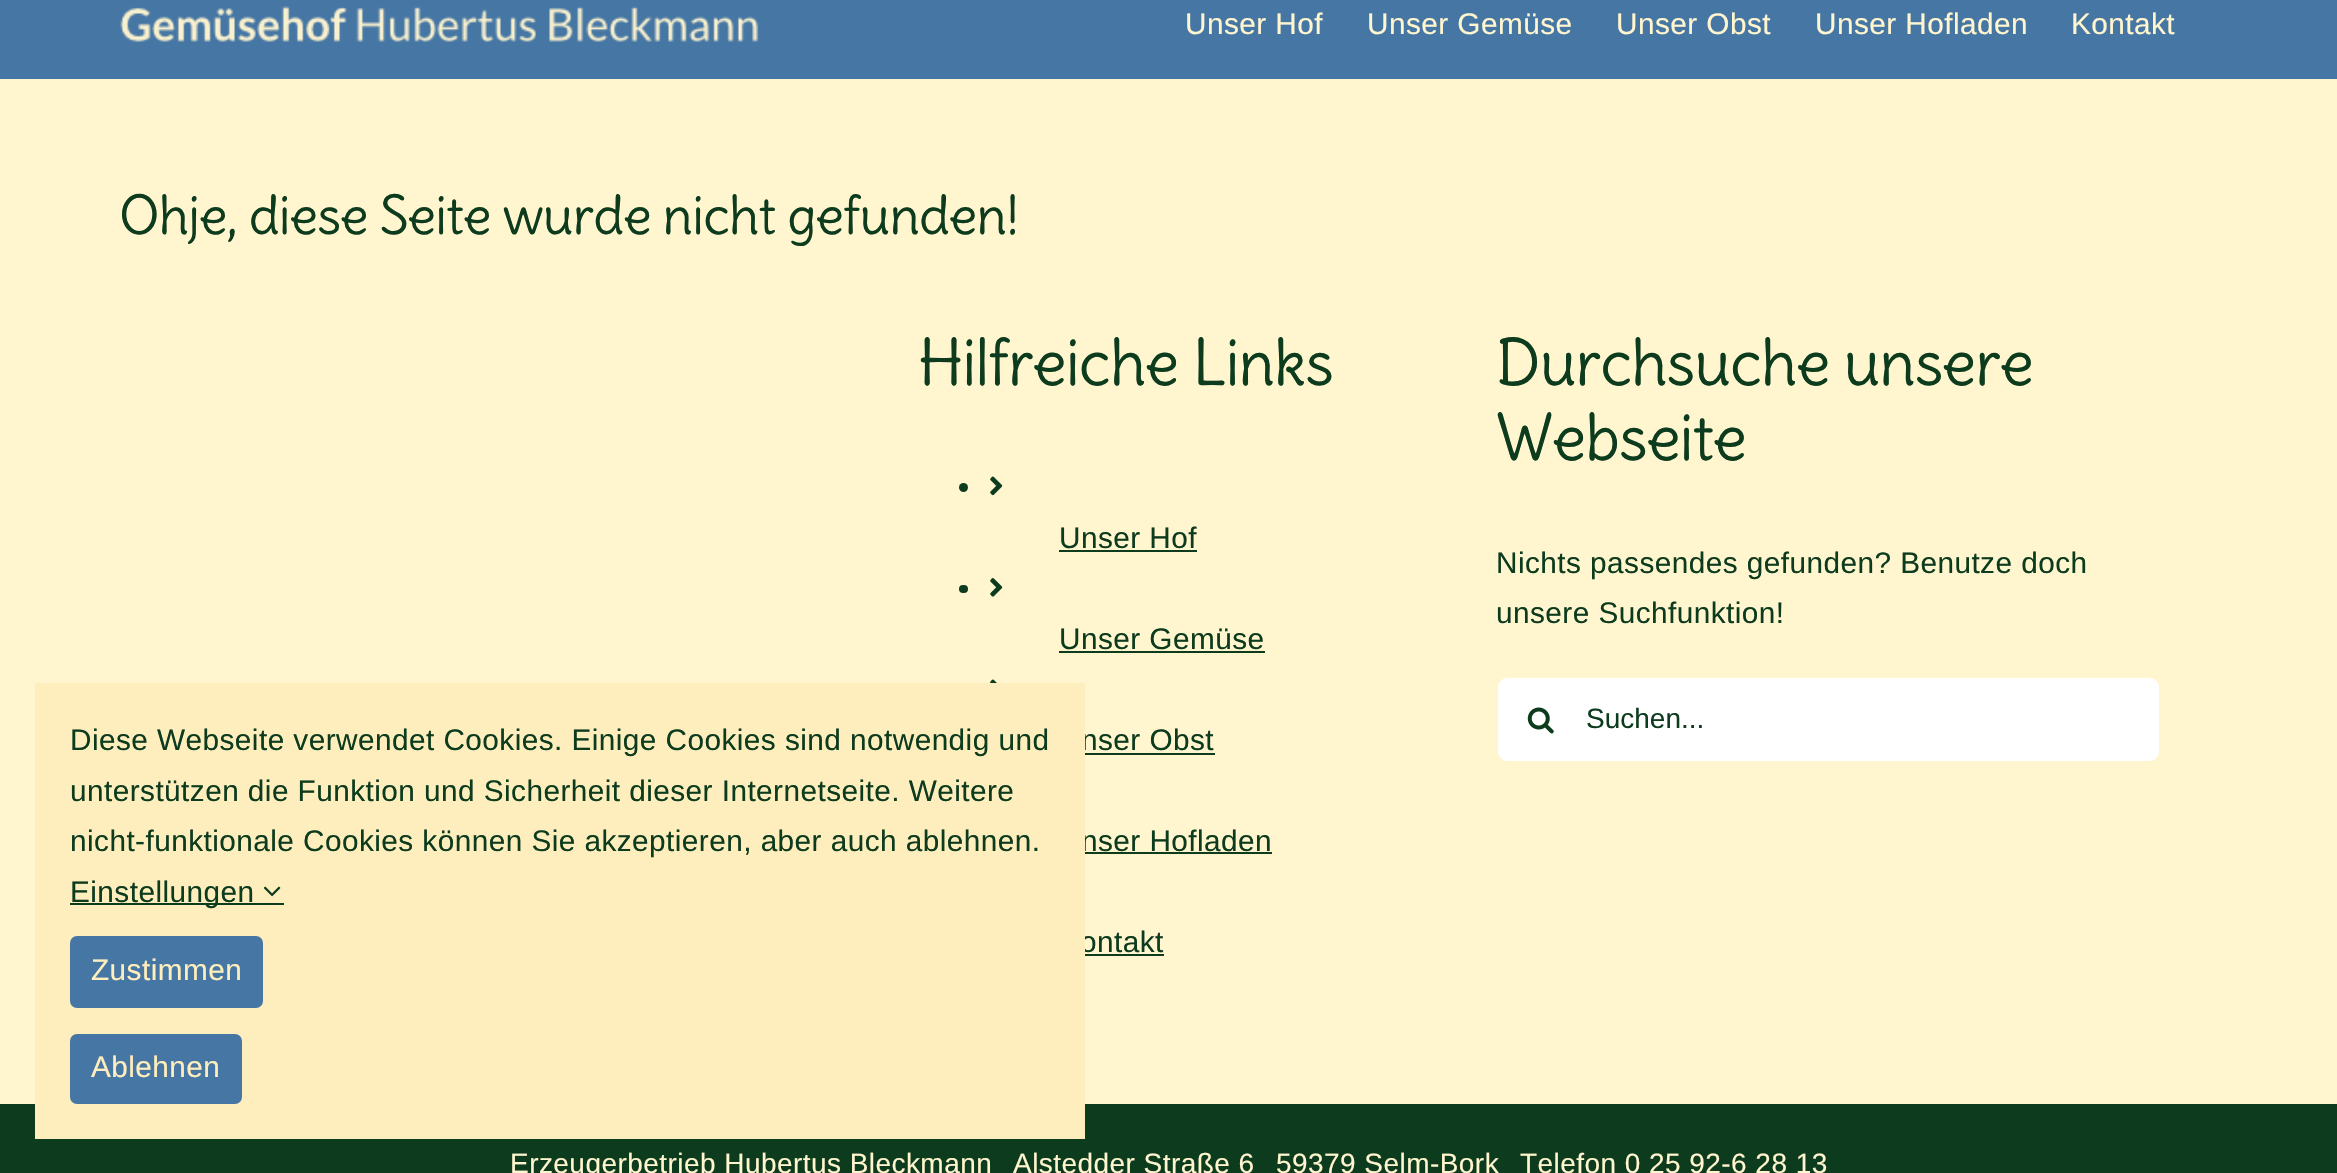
void draw(SkCanvas* canvas) {
  SkPaint paint;
  paint.setAntiAlias(true);
  auto face = [&](const char* family, int weight, float size, bool italic = false) {
    SkFontStyle style(weight, SkFontStyle::kNormal_Width,
      italic ? SkFontStyle::kItalic_Slant : SkFontStyle::kUpright_Slant);
    SkFont result(fontMgr->matchFamilyStyle(family, style), size);
    result.setSubpixel(true);
    return result;
  };
  auto writeSpaced = [&](const char* s, float x, float y, const SkFont& font, const SkPaint& ink, float letter, float word) {
    std::vector<SkGlyphID> glyphs(font.countText(s, strlen(s), SkTextEncoding::kUTF8));
    std::vector<float> xs(glyphs.size());
    font.textToGlyphs(s, strlen(s), SkTextEncoding::kUTF8, glyphs);
    font.getXPos(glyphs, xs, x);
    float extra = 0;
    for (size_t i = 0; i < glyphs.size(); i++) {
      xs[i] += extra;
      extra += letter + word * (glyphs[i] == font.unicharToGlyph(' '));
    }
    canvas->drawTextBlob(SkTextBlob::MakeFromPosHGlyphs(glyphs, xs, y, font), 0, 0, ink);
  };
  auto paste = [&](const char* path, float x, float y, float w, float h) {
    auto image = SkImages::DeferredFromEncodedData(SkData::MakeFromFileName(path));
    canvas->drawImageRect(image, SkRect::MakeXYWH(x, y, w, h), SkSamplingOptions());
  };
  canvas->clear(0xfffff5cf);
  paint.setColor(0xff4576a4);
  canvas->drawRect(SkRect::MakeXYWH(0, 0, 2337, 79), paint);
  paste("img/1.png", 120, 6, 639, 36);
  paint.setColor(0xff0d3b1d);
  canvas->drawCircle(963.5f, 487.5f, 4.5f, paint);
  paste("img/2.png", 990, 476, 13, 20);
  canvas->drawRect(SkRect::MakeXYWH(1059, 550, 138, 2), paint);
  canvas->drawRoundRect(SkRect::MakeXYWH(959, 585, 9, 8), 4, 4, paint);
  paste("img/3.png", 990, 578, 13, 19);
  canvas->drawRect(SkRect::MakeXYWH(1059, 651, 206, 2), paint);
  paste("img/4.png", 990, 679, 7, 4);
  {
    const struct { float x, y, w, h; SkColor color; } items[] = {
      {1085, 753, 130, 2, 0xff0d3b1d},
      {1085, 852, 187, 2, 0xff0d3b1d},
      {1085, 954, 79, 2, 0xff0d3b1d},
    };
    for (auto [x, y, w, h, color] : items) {
      paint.setColor(color);
      canvas->drawRect(SkRect::MakeXYWH(x, y, w, h), paint);
    }
  }
  paint.setColor(0xffffffff);
  canvas->drawRoundRect(SkRect::MakeXYWH(1497, 677, 663, 85), 10, 10, paint);
  paint.setStroke(true);
  paint.setStrokeWidth(2);
  paint.setColor(0xfffff5cf);
  canvas->drawRoundRect(SkRect::MakeXYWH(1497, 677, 663, 85), 10, 10, paint);
  paste("img/5.png", 1527, 707, 27, 27);
  paint.setStroke(false);
  paint.setColor(0xff0d3b1d);
  canvas->drawRect(SkRect::MakeXYWH(0, 1104, 2337, 69), paint);
  auto f0 = face("Liberation Sans", 400, 29.75f);
  paint.setColor(0xfffff5cf);
  {
    const struct { const char* s; float x, y; } items[] = {
      {"Unser Hof", 1185, 34},
      {"Unser Gemüse", 1367, 34},
      {"Unser Obst", 1616, 34},
      {"Unser Hofladen", 1815, 34},
      {"Kontakt", 2071, 34},
    };
    for (auto [s, x, y] : items) {
      writeSpaced(s, x, y, f0, paint, 0.45f, 0);
    }
  }
  auto f1 = face("Delius", 400, 52.5f);
  paint.setColor(0xff0d3b1d);
  writeSpaced("Ohje, diese Seite wurde nicht gefunden!", 119, 234, f1, paint, -0.8f, 0);
  auto f2 = face("Delius", 400, 63);
  writeSpaced("Hilfreiche Links", 918, 385, f2, paint, -1, 0);
  {
    const struct { const char* s; float x, y; } items[] = {
      {"Unser Hof", 1059, 548},
      {"Unser Gemüse", 1059, 649},
      {"nser Obst", 1081, 750},
      {"nser Hofladen", 1081, 851},
      {"ontakt", 1080, 952},
    };
    for (auto [s, x, y] : items) {
      writeSpaced(s, x, y, f0, paint, 0.45f, 0);
    }
  }
  writeSpaced("Durchsuche unsere", 1496, 385, f2, paint, -1, 0);
  writeSpaced("Webseite", 1496, 460, f2, paint, -1, 0);
  writeSpaced("Nichts passendes gefunden? Benutze doch", 1496, 573, f0, paint, 0.45f, 0);
  writeSpaced("unsere Suchfunktion!", 1496, 623, f0, paint, 0.45f, 0);
  auto f3 = face("Liberation Sans", 400, 28);
  canvas->drawString("Suchen...", 1586, 728, f3, paint);
  paint.setColor(0xfffff5cf);
  {
    const struct { const char* s; float x, y; } items[] = {
      {"Erzeugerbetrieb Hubertus Bleckmann", 510, 1173},
      {"Alstedder Straße 6", 1013, 1173},
      {"59379 Selm-Bork", 1276, 1173},
      {"Telefon 0 25 92-6 28 13", 1520, 1173},
    };
    for (auto [s, x, y] : items) {
      writeSpaced(s, x, y, f3, paint, 0.45f, 0);
    }
  }
  paint.setColor(0xffffeebd);
  canvas->drawRect(SkRect::MakeXYWH(35, 683, 1050, 456), paint);
  paint.setColor(0xff0d3b1d);
  {
    const struct { const char* s; float x, y; } items[] = {
      {"Diese Webseite verwendet Cookies. Einige Cookies sind notwendig und", 70, 750},
      {"unterstützen die Funktion und Sicherheit dieser Internetseite. Weitere", 70, 801},
      {"nicht-funktionale Cookies können Sie akzeptieren, aber auch ablehnen.", 70, 851},
    };
    for (auto [s, x, y] : items) {
      writeSpaced(s, x, y, f0, paint, 0.45f, 0);
    }
  }
  canvas->drawRect(SkRect::MakeXYWH(70, 903, 214, 2), paint);
  writeSpaced("Einstellungen", 70, 902, f0, paint, 0.45f, 0);
  paste("img/6.png", 263, 886, 18, 11);
  paint.setColor(0xff4576a4);
  canvas->drawRoundRect(SkRect::MakeXYWH(70, 936, 193, 72), 7, 7, paint);
  paint.setColor(0xffffeebd);
  writeSpaced("Zustimmen", 91, 980, f0, paint, 0.45f, 0);
  paint.setColor(0xff4576a4);
  canvas->drawRoundRect(SkRect::MakeXYWH(70, 1034, 172, 70), 7, 7, paint);
  paint.setColor(0xffffeebd);
  writeSpaced("Ablehnen", 91, 1077, f0, paint, 0.45f, 0);
}
